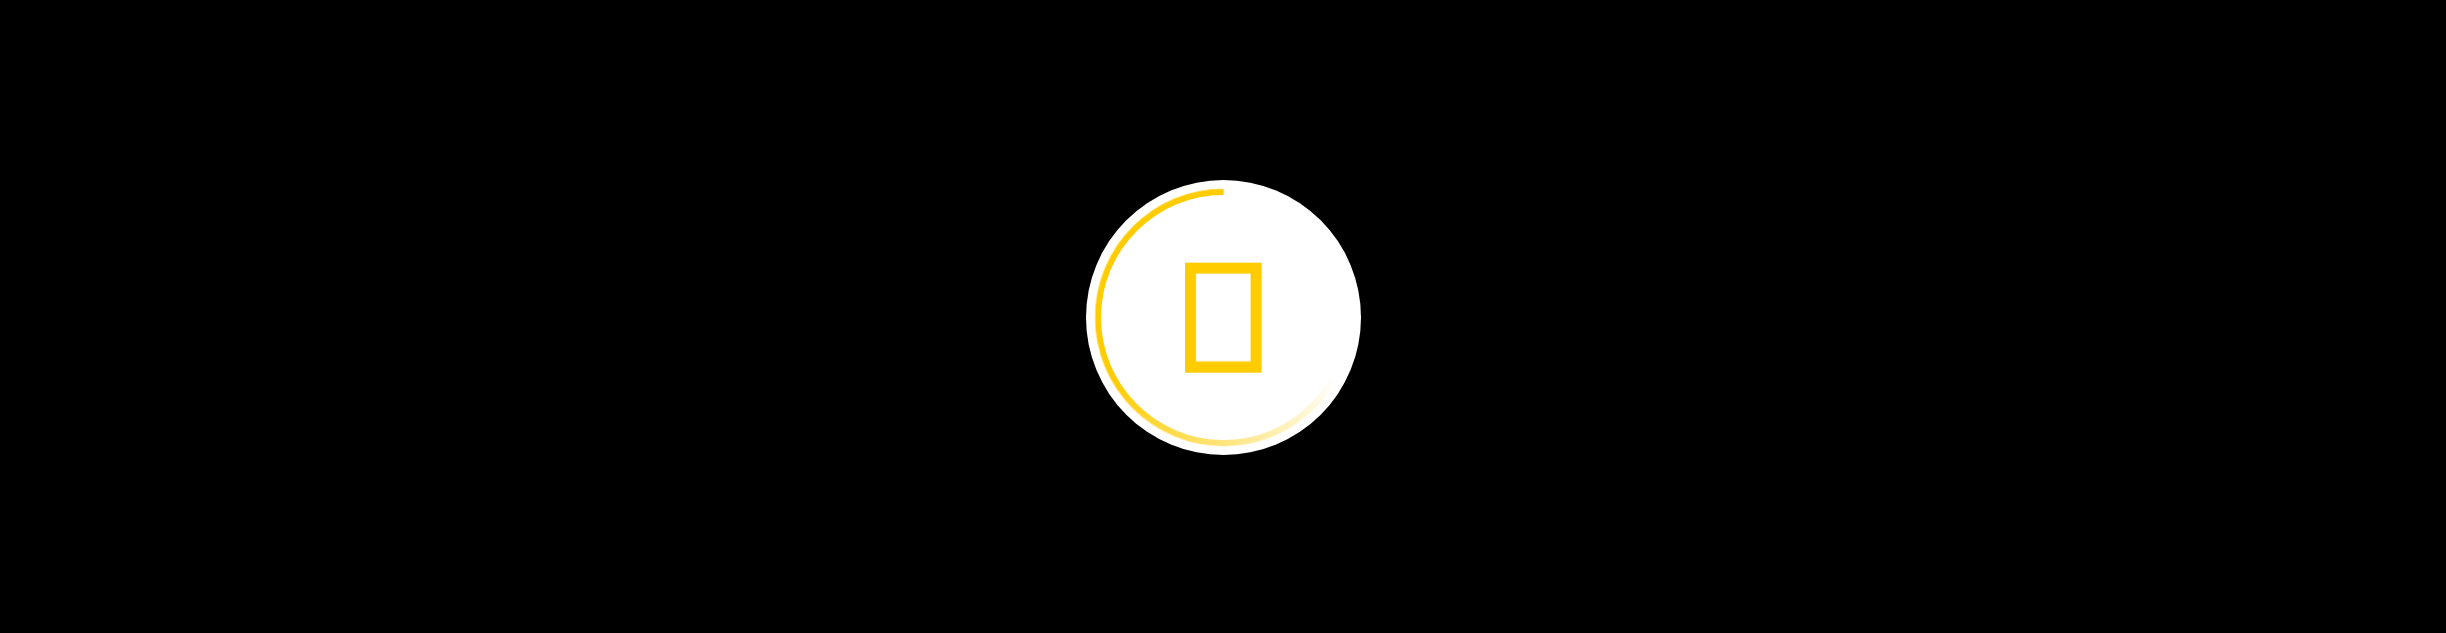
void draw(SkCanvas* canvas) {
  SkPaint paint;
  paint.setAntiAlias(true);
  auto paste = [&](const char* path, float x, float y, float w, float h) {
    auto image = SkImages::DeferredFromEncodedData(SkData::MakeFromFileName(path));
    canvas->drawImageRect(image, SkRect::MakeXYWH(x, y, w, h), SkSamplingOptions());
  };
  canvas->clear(0xff000000);
  paint.setColor(0xffffffff);
  canvas->drawCircle(1223.5f, 317.5f, 137.5f, paint);
  paste("img/1.png", 1094, 188, 240, 259);
  canvas->drawCircle(1223.5f, 317.5f, 122.5f, paint);
  paste("img/2.png", 1185, 262, 77, 111);
}
